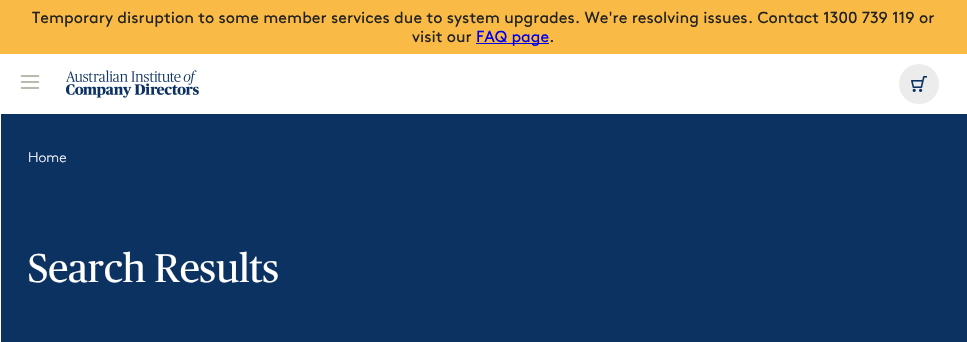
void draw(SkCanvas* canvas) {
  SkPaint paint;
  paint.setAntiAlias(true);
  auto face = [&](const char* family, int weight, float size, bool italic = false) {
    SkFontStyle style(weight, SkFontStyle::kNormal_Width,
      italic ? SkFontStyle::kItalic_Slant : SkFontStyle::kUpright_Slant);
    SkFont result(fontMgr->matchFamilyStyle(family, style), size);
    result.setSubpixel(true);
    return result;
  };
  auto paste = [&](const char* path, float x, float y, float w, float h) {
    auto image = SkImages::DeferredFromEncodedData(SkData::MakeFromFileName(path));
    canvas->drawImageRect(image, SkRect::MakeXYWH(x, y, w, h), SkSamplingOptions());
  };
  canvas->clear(0xffffffff);
  paint.setColor(0xfff9bb45);
  canvas->drawRect(SkRect::MakeXYWH(0, 0, 967, 54), paint);
  paint.setColor(0xff0000ee);
  canvas->drawRect(SkRect::MakeXYWH(476, 43, 73, 1), paint);
  paste("img/1.png", 20, 75, 20, 14);
  paste("img/2.png", 66, 70, 133, 28);
  paint.setColor(0xffececec);
  canvas->drawCircle(919, 84, 20, paint);
  paste("img/3.png", 911, 76, 16, 16);
  paint.setColor(0xff0c3262);
  canvas->drawRect(SkRect::MakeXYWH(1, 114, 966, 228), paint);
  auto f0 = face("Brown", 400, 16);
  paint.setColor(0xff222222);
  canvas->drawString("Temporary disruption to some member services due to system upgrades. We're resolving issues. Contact 1300 739 119 or", 32, 23, f0, paint);
  canvas->drawString("visit our", 412, 42, f0, paint);
  paint.setColor(0xff0000ee);
  canvas->drawString("FAQ page", 476, 42, f0, paint);
  paint.setColor(0xff222222);
  canvas->drawString(".", 549, 42, f0, paint);
  auto f1 = face("Brown", 300, 14);
  paint.setColor(0xffffffff);
  canvas->drawString("Home", 28, 162, f1, paint);
  auto f2 = face("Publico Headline", 400, 40);
  canvas->drawString("Search Results", 28, 282, f2, paint);
}
